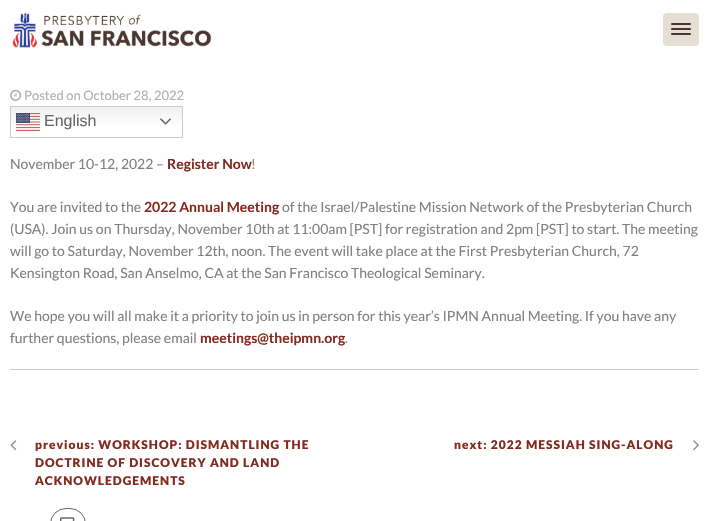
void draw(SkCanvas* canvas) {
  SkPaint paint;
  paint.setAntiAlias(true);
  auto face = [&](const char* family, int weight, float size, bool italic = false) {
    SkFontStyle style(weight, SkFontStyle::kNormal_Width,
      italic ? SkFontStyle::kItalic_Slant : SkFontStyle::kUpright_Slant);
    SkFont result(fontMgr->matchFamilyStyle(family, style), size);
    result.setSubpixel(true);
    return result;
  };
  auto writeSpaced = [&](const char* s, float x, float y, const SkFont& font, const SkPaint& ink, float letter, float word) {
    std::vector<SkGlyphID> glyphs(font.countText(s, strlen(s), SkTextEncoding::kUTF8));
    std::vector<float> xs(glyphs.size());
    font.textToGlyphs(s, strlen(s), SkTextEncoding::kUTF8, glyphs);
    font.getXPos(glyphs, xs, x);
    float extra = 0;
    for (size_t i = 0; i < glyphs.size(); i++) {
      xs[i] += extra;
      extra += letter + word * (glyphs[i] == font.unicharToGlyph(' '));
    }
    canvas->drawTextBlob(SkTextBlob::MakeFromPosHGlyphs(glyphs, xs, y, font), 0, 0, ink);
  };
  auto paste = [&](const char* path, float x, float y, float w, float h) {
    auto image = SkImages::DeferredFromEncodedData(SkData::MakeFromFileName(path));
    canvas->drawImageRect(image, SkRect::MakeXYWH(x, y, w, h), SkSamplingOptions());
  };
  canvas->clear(0xffffffff);
  paste("img/1.png", 12, 13, 200, 35);
  paint.setColor(0xffe6ded3);
  canvas->drawRoundRect(SkRect::MakeXYWH(663, 13, 36, 33), 4, 4, paint);
  paint.setColor(0xff493630);
  canvas->drawRoundRect(SkRect::MakeXYWH(671, 23, 20, 2), 1, 1, paint);
  canvas->drawRoundRect(SkRect::MakeXYWH(671, 28, 20, 2), 1, 1, paint);
  canvas->drawRoundRect(SkRect::MakeXYWH(671, 33, 20, 2), 1, 1, paint);
  paste("img/2.png", 10, 89, 12, 12);
  {
    const SkColor colors[] = {0xffefefef, 0xffffffff};
    const float stops[] = {0, 0.7f};
    const SkPoint ends[] = {{97, 106}, {97, 138}};
    paint.setShader(SkGradientShader::MakeLinear(ends, colors, stops, 2, SkTileMode::kClamp));
    paint.setAlpha(255);
  }
  canvas->drawRect(SkRect::MakeXYWH(11, 107, 171, 18), paint);
  paint.setStroke(true);
  paint.setStrokeWidth(1);
  paint.setShader(nullptr);
  paint.setColor(0xffcccccc);
  canvas->drawRect(SkRect::MakeXYWH(10.5f, 106.5f, 172, 31), paint);
  paste("img/3.png", 16, 113, 24, 18);
  paste("img/4.png", 160, 118, 11, 7);
  paint.setStroke(false);
  canvas->drawRect(SkRect::MakeXYWH(10, 369, 689, 1), paint);
  paste("img/5.png", 10, 440, 7, 11);
  paste("img/6.png", 693, 440, 6, 11);
  paint.setStroke(true);
  paint.setColor(0xff666666);
  canvas->drawRoundRect(SkRect::MakeXYWH(50.5f, 508.5f, 35, 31), 17.5f, 17.5f, paint);
  paste("img/7.png", 60, 517, 15, 4);
  auto f0 = face("Lato", 400, 13);
  paint.setStroke(false);
  paint.setColor(0xffb0b0b0);
  canvas->drawString("Posted on October 28, 2022", 24, 100, f0, paint);
  auto f1 = face("Liberation Sans", 400, 16);
  paint.setColor(0xff666666);
  canvas->drawString("English", 44, 126, f1, paint);
  auto f2 = face("Lato", 400, 14);
  paint.setColor(0xff808080);
  canvas->drawString("November 10-12, 2022 –", 10, 169, f2, paint);
  auto f3 = face("Lato", 700, 14);
  paint.setColor(0xff842b21);
  canvas->drawString("Register Now", 167, 169, f3, paint);
  paint.setColor(0xff808080);
  canvas->drawString("!", 251, 169, f2, paint);
  canvas->drawString("You are invited to the", 10, 212, f2, paint);
  paint.setColor(0xff842b21);
  canvas->drawString("2022 Annual Meeting", 144, 212, f3, paint);
  paint.setColor(0xff808080);
  {
    const struct { const char* s; float x, y; } items[] = {
      {"of the Israel/Palestine Mission Network of the Presbyterian Church", 282, 212},
      {"(USA). Join us on Thursday, November 10th at 11:00am [PST] for registration and 2pm [PST] to start. The meeting", 10, 234},
      {"will go to Saturday, November 12th, noon. The event will take place at the First Presbyterian Church, 72", 10, 256},
      {"Kensington Road, San Anselmo, CA at the San Francisco Theological Seminary.", 10, 278},
      {"We hope you will all make it a priority to join us in person for this year’s IPMN Annual Meeting. If you have any", 10, 321},
      {"further questions, please email", 10, 343},
    };
    for (auto [s, x, y] : items) {
      canvas->drawString(s, x, y, f2, paint);
    }
  }
  paint.setColor(0xff842b21);
  canvas->drawString("meetings@theipmn.org", 200, 343, f3, paint);
  paint.setColor(0xff808080);
  canvas->drawString(".", 345, 343, f2, paint);
  auto f4 = face("Lato", 900, 12);
  paint.setColor(0xff842b21);
  {
    const struct { const char* s; float x, y; } items[] = {
      {"previous: WORKSHOP: DISMANTLING THE", 35, 449},
      {"DOCTRINE OF DISCOVERY AND LAND", 35, 467},
      {"ACKNOWLEDGEMENTS", 35, 485},
      {"next: 2022 MESSIAH SING-ALONG", 454, 449},
    };
    for (auto [s, x, y] : items) {
      writeSpaced(s, x, y, f4, paint, 1, 0);
    }
  }
}
